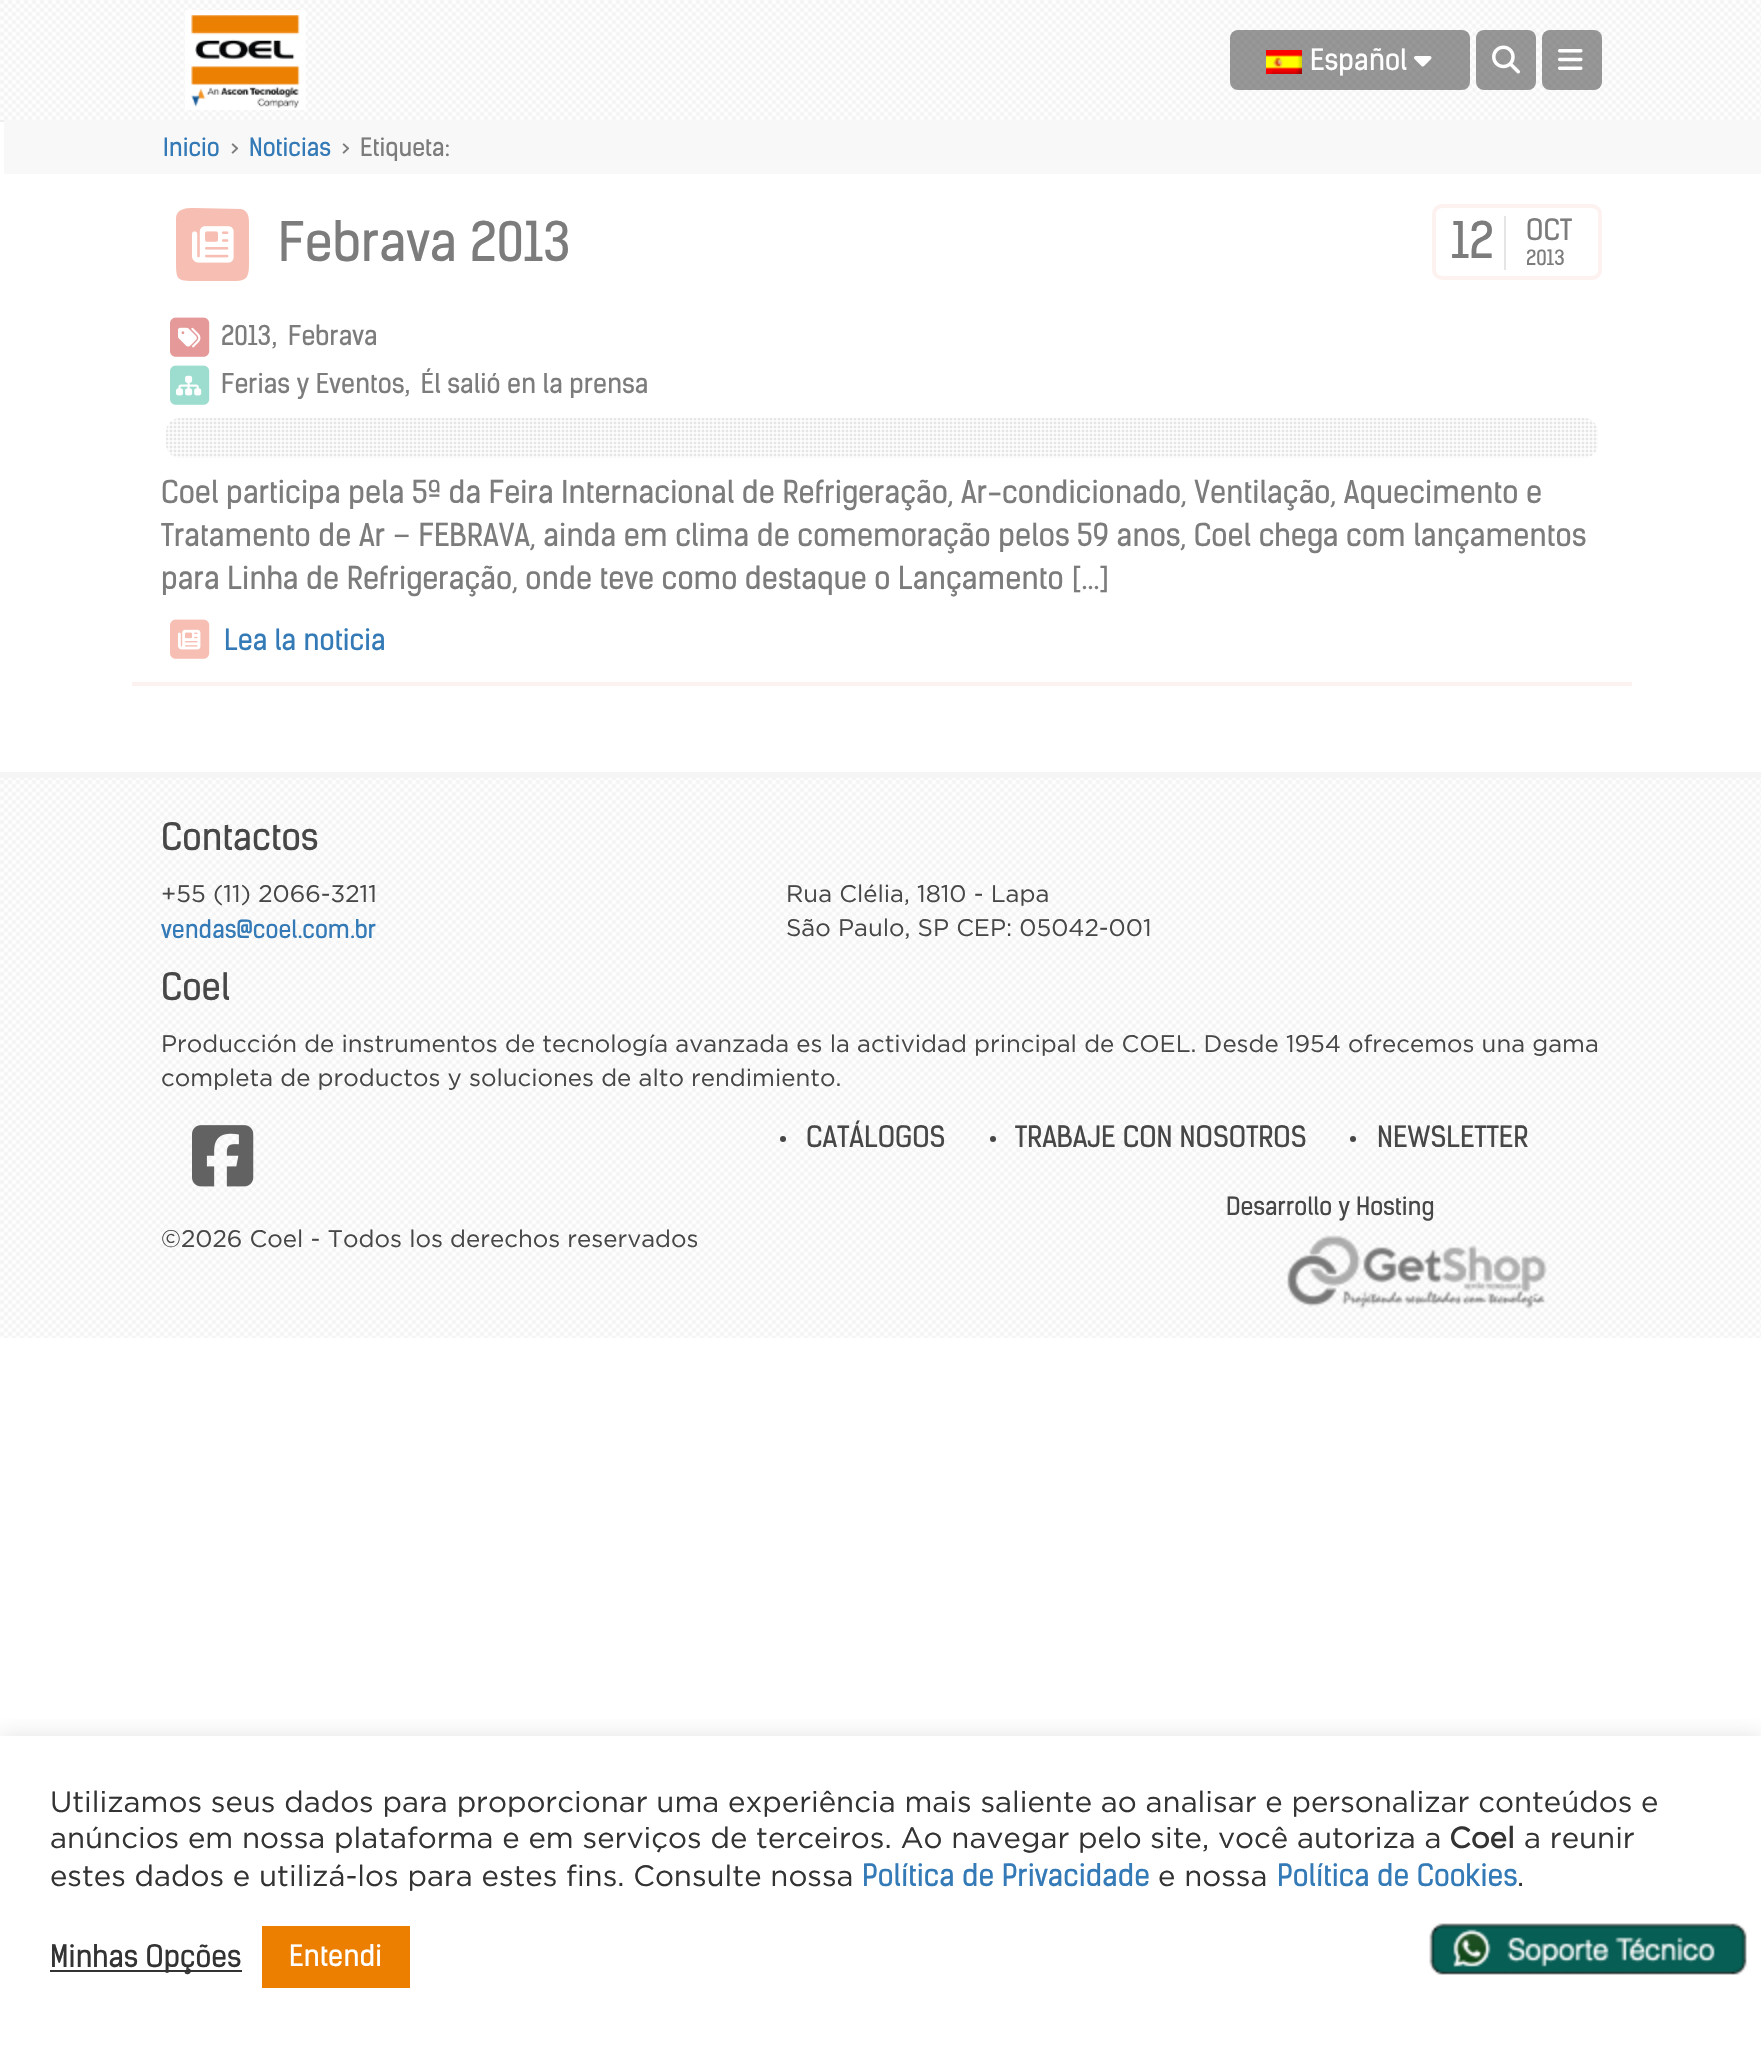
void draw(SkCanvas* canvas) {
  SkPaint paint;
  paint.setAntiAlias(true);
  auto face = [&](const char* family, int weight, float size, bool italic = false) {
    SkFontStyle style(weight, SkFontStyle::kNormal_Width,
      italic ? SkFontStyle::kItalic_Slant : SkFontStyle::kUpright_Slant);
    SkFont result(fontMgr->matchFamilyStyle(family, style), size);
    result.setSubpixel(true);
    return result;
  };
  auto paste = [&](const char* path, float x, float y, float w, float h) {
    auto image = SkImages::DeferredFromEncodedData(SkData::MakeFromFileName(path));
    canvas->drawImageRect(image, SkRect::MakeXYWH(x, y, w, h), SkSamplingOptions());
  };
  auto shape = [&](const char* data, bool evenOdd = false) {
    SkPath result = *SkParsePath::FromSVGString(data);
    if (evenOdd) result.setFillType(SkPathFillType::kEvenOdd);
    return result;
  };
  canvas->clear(0xffffffff);
  paste("img/1.png", 0, 0, 1761, 120);
  paint.setColor(0xffeeeeee);
  canvas->drawRect(SkRect::MakeXYWH(0, 120, 4, 2), paint);
  paste("img/2.png", 185, 10, 121, 100);
  paint.setColor(0x80323232);
  canvas->drawRoundRect(SkRect::MakeXYWH(1230, 30, 240, 60), 8, 8, paint);
  paste("img/3.png", 1266, 50, 36, 24);
  paste("img/4.png", 1414, 56, 18, 11);
  canvas->drawRoundRect(SkRect::MakeXYWH(1476, 30, 60, 60), 8, 8, paint);
  paste("img/5.png", 1492, 45, 28, 29);
  canvas->drawRoundRect(SkRect::MakeXYWH(1542, 30, 60, 60), 8, 8, paint);
  paste("img/6.png", 1558, 49, 25, 21);
  paint.setColor(0xfff8f8f8);
  canvas->drawRect(SkRect::MakeXYWH(4, 120, 1757, 54), paint);
  paint.setColor(0xfffdf2f0);
  canvas->drawRect(SkRect::MakeXYWH(132, 682, 1500, 4), paint);
  paint.setColor(0xfff7bfb3);
  canvas->drawPath(shape("M176 219C176 208 187 208 195 208L241 209C250 211 249 220 249 227V245C249 285 253 281 212 281H195C177 281 176 280 176 262Z"), paint);
  paste("img/7.png", 192, 226, 42, 37);
  paint.setStroke(true);
  paint.setStrokeWidth(4);
  paint.setColor(0xfffdf2f0);
  canvas->drawRoundRect(SkRect::MakeXYWH(1434, 206, 166, 72), 8, 8, paint);
  paint.setStroke(false);
  paint.setColor(0xffe5e5e5);
  canvas->drawRect(SkRect::MakeXYWH(1504, 216, 2, 54), paint);
  paste("img/8.png", 170, 317, 40, 40);
  paste("img/9.png", 178, 327, 23, 21);
  paste("img/10.png", 170, 365, 40, 40);
  paste("img/11.png", 176, 375, 26, 21);
  paste("img/12.png", 166, 418, 1432, 40);
  paste("img/13.png", 170, 619, 40, 40);
  paste("img/14.png", 178, 629, 23, 21);
  paste("img/15.png", 0, 778, 1761, 560);
  paint.setColor(0xfff5f5f5);
  canvas->drawRect(SkRect::MakeXYWH(0, 772, 1761, 6), paint);
  paste("img/16.png", 192, 1125, 62, 62);
  paint.setColor(0xff474747);
  canvas->drawCircle(783, 1139, 3, paint);
  canvas->drawCircle(993, 1139, 3, paint);
  canvas->drawCircle(1353, 1139, 3, paint);
  paste("img/17.png", 1287, 1235, 260, 74);
  canvas->save();
  canvas->clipRect(SkRect::MakeXYWH(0, 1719, 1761, 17));
  paint.setColor(0x4dacabab);
  paint.setMaskFilter(SkMaskFilter::MakeBlur(kNormal_SkBlurStyle, 10));
  canvas->drawRect(SkRect::MakeXYWH(0, 1734, 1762, 312), paint);
  paint.setMaskFilter(nullptr);
  canvas->restore();
  paste("img/18.png", 1429, 1923, 318, 52);
  paint.setColor(0xff333333);
  canvas->drawRect(SkRect::MakeXYWH(50, 1970, 192, 2), paint);
  paint.setColor(0xffec7e00);
  canvas->drawRect(SkRect::MakeXYWH(262, 1926, 148, 62), paint);
  auto f0 = face("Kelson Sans", 400, 28);
  paint.setColor(0xffffffff);
  canvas->drawString("Español", 1310, 70, f0, paint);
  auto f1 = face("Kelson Sans", 400, 24);
  paint.setColor(0xff337ab7);
  canvas->drawString("Inicio", 163, 156, f1, paint);
  paint.setColor(0xff7c7c7c);
  canvas->drawString(">", 230, 156, f1, paint);
  paint.setColor(0xff337ab7);
  canvas->drawString("Noticias", 249, 156, f1, paint);
  paint.setColor(0xff7c7c7c);
  canvas->drawString(">", 341, 156, f1, paint);
  canvas->drawString("Etiqueta:", 360, 156, f1, paint);
  auto f2 = face("Kelson Sans", 400, 52);
  canvas->drawString("Febrava 2013", 278, 261, f2, paint);
  auto f3 = face("Kelson Sans", 400, 48);
  canvas->drawString("12", 1451, 258, f3, paint);
  canvas->drawString("OCT", 1526, 240, f0, paint);
  auto f4 = face("Kelson Sans", 400, 20);
  canvas->drawString("2013", 1526, 265, f4, paint);
  auto f5 = face("Kelson Sans", 400, 26);
  canvas->drawString("2013", 221, 345, f5, paint);
  auto f6 = face("Gotham", 400, 28);
  canvas->drawString(",", 271, 345, f6, paint);
  canvas->drawString("Febrava", 288, 345, f5, paint);
  canvas->drawString("Ferias y Eventos", 221, 393, f5, paint);
  canvas->drawString(",", 404, 393, f6, paint);
  canvas->drawString("Él salió en la prensa", 421, 393, f5, paint);
  auto f7 = face("Kelson Sans", 400, 30);
  {
    const struct { const char* s; float x, y; } items[] = {
      {"Coel participa pela 5ª da Feira Internacional de Refrigeração, Ar-condicionado, Ventilação, Aquecimento e", 161, 503},
      {"Tratamento de Ar – FEBRAVA, ainda em clima de comemoração pelos 59 anos, Coel chega com lançamentos", 161, 546},
      {"para Linha de Refrigeração, onde teve como destaque o Lançamento [...]", 161, 589},
    };
    for (auto [s, x, y] : items) {
      canvas->drawString(s, x, y, f7, paint);
    }
  }
  paint.setColor(0xff337ab7);
  canvas->drawString("Lea la noticia", 224, 650, f0, paint);
  auto f8 = face("Kelson Sans", 400, 36);
  paint.setColor(0xff474747);
  canvas->drawString("Contactos", 161, 850, f8, paint);
  auto f9 = face("Gotham", 400, 24);
  canvas->drawString("+55 (11) 2066-3211", 161, 902, f9, paint);
  paint.setColor(0xff337ab7);
  canvas->drawString("vendas@coel.com.br", 161, 938, f1, paint);
  paint.setColor(0xff474747);
  canvas->drawString("Rua Clélia, 1810 - Lapa", 786, 902, f9, paint);
  canvas->drawString("São Paulo, SP CEP: 05042-001", 786, 936, f9, paint);
  canvas->drawString("Coel", 161, 1000, f8, paint);
  canvas->drawString("Producción de instrumentos de tecnología avanzada es la actividad principal de COEL. Desde 1954 ofrecemos una gama", 161, 1052, f9, paint);
  canvas->drawString("completa de productos y soluciones de alto rendimiento.", 161, 1086, f9, paint);
  {
    const struct { const char* s; float x, y; } items[] = {
      {"CATÁLOGOS", 806, 1147},
      {"TRABAJE CON NOSOTROS", 1015, 1147},
      {"NEWSLETTER", 1377, 1147},
    };
    for (auto [s, x, y] : items) {
      canvas->drawString(s, x, y, f0, paint);
    }
  }
  canvas->drawString("Desarrollo y Hosting", 1226, 1215, f1, paint);
  canvas->drawString("©2026 Coel - Todos los derechos reservados", 161, 1247, f9, paint);
  auto f10 = face("Gotham", 400, 29.33f);
  paint.setColor(0xff333333);
  canvas->drawString("Utilizamos seus dados para proporcionar uma experiência mais saliente ao analisar e personalizar conteúdos e", 50, 1812, f10, paint);
  canvas->drawString("anúncios em nossa plataforma e em serviços de terceiros. Ao navegar pelo site, você autoriza a", 50, 1848, f10, paint);
  auto f11 = face("Gotham", 700, 29.33f);
  canvas->drawString("Coel", 1449, 1848, f11, paint);
  canvas->drawString("a reunir", 1524, 1848, f10, paint);
  canvas->drawString("estes dados e utilizá-los para estes fins. Consulte nossa", 50, 1886, f10, paint);
  auto f12 = face("Kelson Sans", 400, 29.33f);
  paint.setColor(0xff337ab7);
  canvas->drawString("Política de Privacidade", 862, 1886, f12, paint);
  paint.setColor(0xff333333);
  canvas->drawString("e nossa", 1158, 1886, f10, paint);
  paint.setColor(0xff337ab7);
  canvas->drawString("Política de Cookies", 1277, 1886, f12, paint);
  paint.setColor(0xff333333);
  canvas->drawString(".", 1517, 1886, f10, paint);
  canvas->drawString("Minhas Opções", 50, 1967, f12, paint);
  paint.setColor(0xffffffff);
  canvas->drawString("Entendi", 289, 1966, f0, paint);
}
